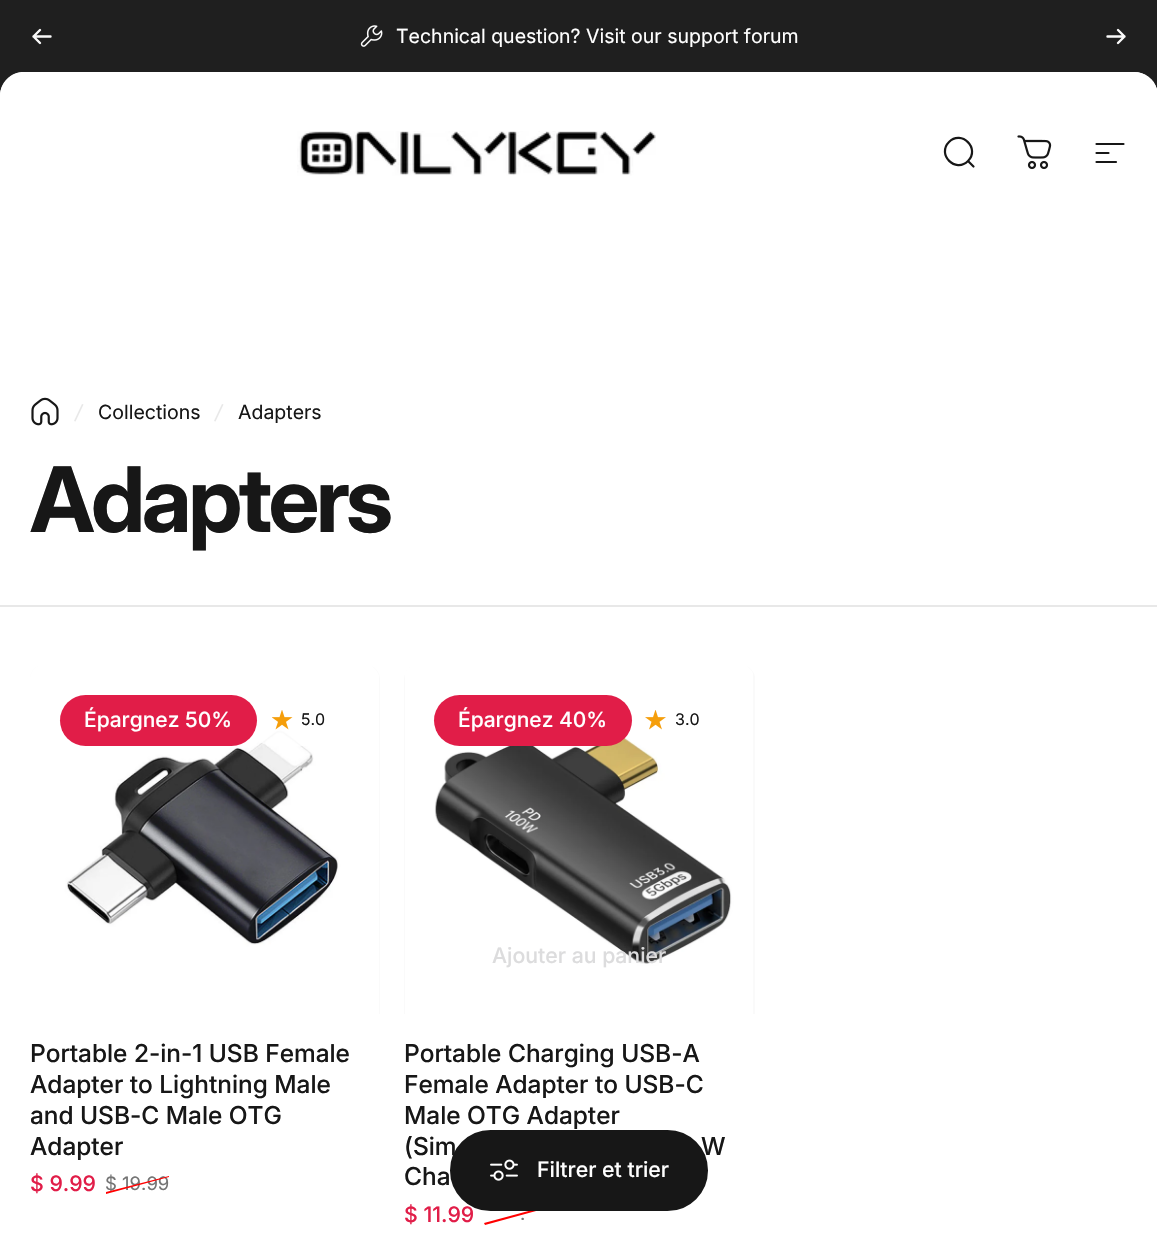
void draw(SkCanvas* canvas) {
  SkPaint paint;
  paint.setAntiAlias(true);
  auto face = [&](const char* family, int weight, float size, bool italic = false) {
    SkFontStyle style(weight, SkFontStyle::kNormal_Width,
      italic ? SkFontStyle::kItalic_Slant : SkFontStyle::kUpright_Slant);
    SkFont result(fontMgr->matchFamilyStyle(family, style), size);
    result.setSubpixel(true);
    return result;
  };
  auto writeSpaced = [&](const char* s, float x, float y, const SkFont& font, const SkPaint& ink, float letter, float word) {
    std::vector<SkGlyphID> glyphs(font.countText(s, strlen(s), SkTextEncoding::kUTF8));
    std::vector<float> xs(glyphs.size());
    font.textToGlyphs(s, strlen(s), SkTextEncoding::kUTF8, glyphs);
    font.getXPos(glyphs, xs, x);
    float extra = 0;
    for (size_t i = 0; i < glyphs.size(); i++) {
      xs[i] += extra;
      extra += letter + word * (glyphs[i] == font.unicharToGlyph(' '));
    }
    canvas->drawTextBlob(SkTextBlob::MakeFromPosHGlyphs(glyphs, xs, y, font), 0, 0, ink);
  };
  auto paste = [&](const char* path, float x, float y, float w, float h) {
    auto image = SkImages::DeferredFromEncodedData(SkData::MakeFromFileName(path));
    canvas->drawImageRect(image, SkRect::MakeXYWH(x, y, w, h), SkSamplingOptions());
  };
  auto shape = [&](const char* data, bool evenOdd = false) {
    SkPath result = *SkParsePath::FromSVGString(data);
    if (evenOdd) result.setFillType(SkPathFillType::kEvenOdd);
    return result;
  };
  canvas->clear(0xffffffff);
  paint.setColor(0xff1f1f1f);
  canvas->drawRect(SkRect::MakeXYWH(0, 0, 1157, 72), paint);
  paint.setStroke(true);
  paint.setStrokeWidth(2.4f);
  paint.setStrokeCap(SkPaint::kRound_Cap);
  paint.setStrokeJoin(SkPaint::kRound_Join);
  paint.setColor(0xfffafafa);
  canvas->drawPath(shape("M40 30L33.5 36.5M33.5 36.5L40 43M33.5 36.5H50.5"), paint);
  paste("img/1.png", 360, 25, 23, 22);
  canvas->drawPath(shape("M1107.5 36.5H1124.5M1124.5 36.5L1118 30M1124.5 36.5L1118 43"), paint);
  paint.setStroke(false);
  paint.setColor(0xff1f1f1f);
  canvas->drawPath(shape("M24 72H0V96C0 83 11 72 24 72Z", true), paint);
  canvas->drawPath(shape("M1134 72H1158V96C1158 83 1147 72 1134 72Z", true), paint);
  paint.setColor(0xffffffff);
  canvas->drawPath(shape("M24 72H1134C1147.5 72 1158 82.5 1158 96V234H0V96C0 82.5 10.5 72 24 72Z"), paint);
  paste("img/2.png", 297, 131, 359, 45);
  paint.setStroke(true);
  paint.setStrokeWidth(2.2f);
  paint.setStrokeJoin(SkPaint::kMiter_Join);
  paint.setColor(0xff171717);
  canvas->drawPath(shape("M973.5 166.5L968 161M968 161C980.5 148.5 961.5 129.5 949 142C936.5 154.5 955.5 173.5 968 161Z"), paint);
  paste("img/3.png", 1017, 135, 35, 35);
  canvas->drawPath(shape("M1096.5 144H1123.5M1096.5 153H1108.5M1096.5 162H1116"), paint);
  paste("img/4.png", 31, 397, 28, 29);
  paint.setStroke(false);
  paint.setColor(0xffe8e8e8);
  canvas->drawPath(shape("M82 404L83.5 404.5L75.5 421.5L74 421Z"), paint);
  canvas->drawPath(shape("M222 404L223.5 404.5L215.5 421.5L214 421Z"), paint);
  canvas->drawRect(SkRect::MakeXYWH(0, 605, 1157, 2), paint);
  paint.setColor(0xfffafafa);
  canvas->drawPath(shape("M45 665H365C373.5 665 380 671.5 380 680V1014H30V680C30 671.5 36.5 665 45 665Z"), paint);
  paste("img/5.png", 30, 665, 349, 349);
  paint.setColor(0xbfffffff);
  canvas->drawRoundRect(SkRect::MakeXYWH(248, 695, 102, 51), 25.5f, 25.5f, paint);
  paint.setColor(0xffe11d48);
  canvas->drawRoundRect(SkRect::MakeXYWH(60, 695, 197, 51), 25.5f, 25.5f, paint);
  paste("img/6.png", 272, 710, 21, 20);
  paint.setColor(0xfffafafa);
  canvas->drawPath(shape("M419 665H740C748.5 665 755 671.5 755 680V1014H404V680C404 671.5 410.5 665 419 665Z"), paint);
  paste("img/7.png", 404, 665, 350, 349);
  canvas->save();
  canvas->clipPath(shape("M419 665H740C748.5 665 755 671.5 755 680V1235C755 1243.5 748.5 1250 740 1250H419C410.5 1250 404 1243.5 404 1235V680C404 671.5 410.5 665 419 665Z"), true);
  canvas->drawRect(SkRect::MakeXYWH(404, 675, 1, 339), paint);
  canvas->drawRect(SkRect::MakeXYWH(753, 665, 2, 349), paint);
  canvas->restore();
  paint.setColor(0xbfffffff);
  canvas->drawRoundRect(SkRect::MakeXYWH(621, 695, 104, 51), 25.5f, 25.5f, paint);
  paint.setColor(0xffe11d48);
  canvas->drawRoundRect(SkRect::MakeXYWH(434, 695, 198, 51), 25.5f, 25.5f, paint);
  paste("img/8.png", 645, 710, 21, 20);
  auto f0 = face("Inter", 400, 19.5f);
  paint.setColor(0xffffffff);
  canvas->drawString("Technical question? Visit our support forum", 396, 43, f0, paint);
  paint.setColor(0xff171717);
  canvas->drawString("Collections", 98, 419, f0, paint);
  canvas->drawString("Adapters", 238, 419, f0, paint);
  auto f1 = face("Inter", 700, 90.5f);
  writeSpaced("Adapters", 30, 532, f1, paint, -3.5f, 0);
  auto f2 = face("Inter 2", 500, 21);
  paint.setColor(0xffffffff);
  canvas->drawString("Épargnez 50%", 84, 727, f2, paint);
  auto f3 = face("Inter", 400, 16);
  paint.setColor(0xff171717);
  canvas->drawString("5.0", 301, 725, f3, paint);
  auto f4 = face("Inter", 500, 24.6f);
  {
    const struct { const char* s; float x, y; } items[] = {
      {"Portable 2-in-1 USB Female", 30, 1062},
      {"Adapter to Lightning Male", 30, 1093},
      {"and USB-C Male OTG", 30, 1124},
      {"Adapter", 30, 1155},
    };
    for (auto [s, x, y] : items) {
      canvas->drawString(s, x, y, f4, paint);
    }
  }
  auto f5 = face("Inter 2", 500, 21.25f);
  paint.setColor(0xffe11d48);
  canvas->drawString("$ 9.99", 30, 1191, f5, paint);
  auto f6 = face("Inter", 400, 18.5f);
  paint.setColor(0xff747474);
  canvas->drawString("$ 19.99", 105, 1190, f6, paint);
  paint.setColor(0xffff0000);
  canvas->drawPath(shape("M106 1192L169 1176V1177L106 1194Z"), paint);
  paint.setColor(0xffffffff);
  canvas->drawString("Épargnez 40%", 458, 727, f2, paint);
  paint.setColor(0xff171717);
  canvas->drawString("3.0", 675, 725, f3, paint);
  paint.setColor(0xffdcdcdd);
  canvas->drawString("Ajouter au panier", 492, 963, f5, paint);
  paint.setColor(0xff171717);
  {
    const struct { const char* s; float x, y; } items[] = {
      {"Portable Charging USB-A", 404, 1062},
      {"Female Adapter to USB-C", 404, 1093},
      {"Male OTG Adapter", 404, 1124},
      {"(Sim", 404, 1155},
      {"W", 701, 1155},
      {"Cha", 404, 1185},
    };
    for (auto [s, x, y] : items) {
      canvas->drawString(s, x, y, f4, paint);
    }
  }
  paint.setColor(0xffe11d48);
  canvas->drawString("$ 11.99", 404, 1222, f5, paint);
  paint.setColor(0xff747474);
  canvas->drawString(".", 520, 1220, f6, paint);
  paint.setColor(0xffff0000);
  canvas->drawPath(shape("M484 1223L547 1206V1208L485 1225Z"), paint);
  paint.setColor(0xff171717);
  canvas->drawRoundRect(SkRect::MakeXYWH(451.5f, 1131.5f, 255, 78), 39, 39, paint);
  paint.setStroke(true);
  paint.setStrokeWidth(3);
  paint.setStrokeCap(SkPaint::kButt_Cap);
  canvas->drawRoundRect(SkRect::MakeXYWH(451.5f, 1131.5f, 255, 78), 39, 39, paint);
  paste("img/9.png", 490, 1159, 28, 22);
  paint.setStroke(false);
  paint.setColor(0xffffffff);
  canvas->drawString("Filtrer et trier", 537, 1177, f5, paint);
}
